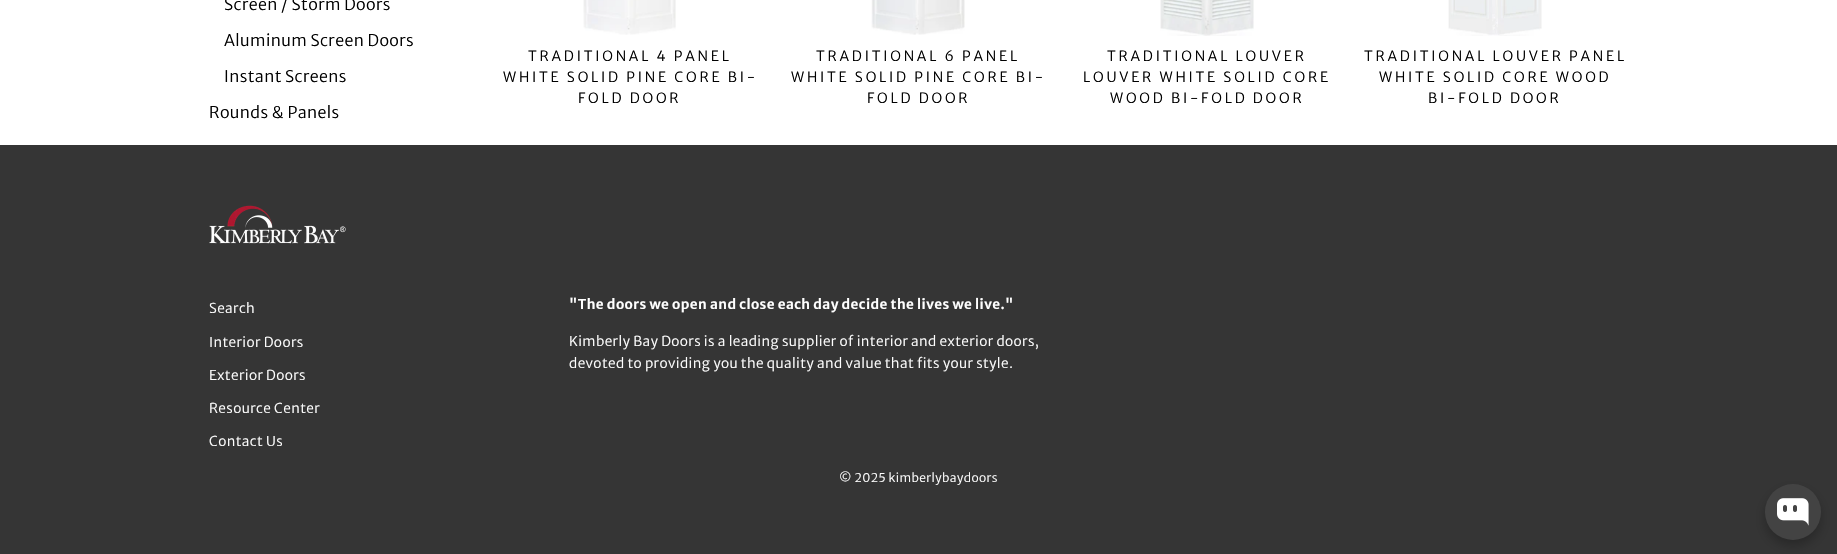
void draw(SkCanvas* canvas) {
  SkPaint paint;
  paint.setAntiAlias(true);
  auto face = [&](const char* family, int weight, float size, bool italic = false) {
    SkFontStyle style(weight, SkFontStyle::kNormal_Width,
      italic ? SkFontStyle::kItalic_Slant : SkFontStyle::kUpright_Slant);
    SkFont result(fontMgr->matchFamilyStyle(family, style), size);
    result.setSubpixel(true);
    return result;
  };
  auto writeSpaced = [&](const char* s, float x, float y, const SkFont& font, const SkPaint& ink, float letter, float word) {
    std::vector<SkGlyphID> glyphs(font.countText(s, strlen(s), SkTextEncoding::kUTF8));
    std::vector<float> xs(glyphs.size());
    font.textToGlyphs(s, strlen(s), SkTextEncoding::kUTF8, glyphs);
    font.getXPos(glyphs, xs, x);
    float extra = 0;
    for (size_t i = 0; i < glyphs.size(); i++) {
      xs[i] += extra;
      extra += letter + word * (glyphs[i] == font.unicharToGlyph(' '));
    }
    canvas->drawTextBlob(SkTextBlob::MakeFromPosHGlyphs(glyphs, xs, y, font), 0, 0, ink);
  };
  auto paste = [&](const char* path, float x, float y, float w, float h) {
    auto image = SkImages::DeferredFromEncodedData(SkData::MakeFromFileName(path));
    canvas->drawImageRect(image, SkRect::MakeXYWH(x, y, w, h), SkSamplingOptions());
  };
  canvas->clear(0xffffffff);
  paste("img/1.png", 583, 0, 93, 35);
  paste("img/2.png", 871, 0, 94, 35);
  paste("img/3.png", 1160, 0, 94, 36);
  paste("img/4.png", 1448, 0, 94, 36);
  paint.setColor(0xff353535);
  canvas->drawRect(SkRect::MakeXYWH(0, 145, 1837, 409), paint);
  paste("img/5.png", 209, 205, 137, 39);
  paint.setColor(0x40000000);
  paint.setMaskFilter(SkMaskFilter::MakeBlur(kNormal_SkBlurStyle, 6));
  canvas->drawRoundRect(SkRect::MakeXYWH(1765, 490, 56, 56), 28, 28, paint);
  paint.setMaskFilter(nullptr);
  paint.setColor(0xff434343);
  canvas->drawCircle(1793, 512, 28, paint);
  paste("img/6.png", 1777, 498, 32, 28);
  auto f0 = face("Merriweather Sans", 300, 16);
  paint.setColor(0xff000000);
  {
    const struct { const char* s; float x, y; } items[] = {
      {"Screen / Storm Doors", 224, 10},
      {"Aluminum Screen Doors", 224, 46},
      {"Instant Screens", 224, 82},
      {"Rounds & Panels", 209, 118},
    };
    for (auto [s, x, y] : items) {
      writeSpaced(s, x, y, f0, paint, 0.4f, 0);
    }
  }
  auto f1 = face("Merriweather Sans", 300, 14);
  {
    const struct { const char* s; float x, y; } items[] = {
      {"TRADITIONAL 4 PANEL", 528, 61},
      {"WHITE SOLID PINE CORE BI-", 503, 82},
      {"FOLD DOOR", 578, 103},
      {"TRADITIONAL 6 PANEL", 816, 61},
      {"WHITE SOLID PINE CORE BI-", 791, 82},
      {"FOLD DOOR", 867, 103},
      {"TRADITIONAL LOUVER", 1107, 61},
      {"LOUVER WHITE SOLID CORE", 1083, 82},
      {"WOOD BI-FOLD DOOR", 1110, 103},
      {"TRADITIONAL LOUVER PANEL", 1364, 61},
      {"WHITE SOLID CORE WOOD", 1379, 82},
      {"BI-FOLD DOOR", 1428, 103},
    };
    for (auto [s, x, y] : items) {
      writeSpaced(s, x, y, f1, paint, 2.8f, 0);
    }
  }
  auto f2 = face("Merriweather Sans", 300, 13.6f);
  paint.setColor(0xffffffff);
  {
    const struct { const char* s; float x, y; } items[] = {
      {"Search", 209, 313},
      {"Interior Doors", 209, 347},
      {"Exterior Doors", 209, 380},
      {"Resource Center", 209, 413},
      {"Contact Us", 209, 446},
    };
    for (auto [s, x, y] : items) {
      writeSpaced(s, x, y, f2, paint, 0.4f, 0);
    }
  }
  auto f3 = face("Merriweather Sans", 600, 13.6f);
  writeSpaced("\"The doors we open and close each day decide the lives we live.\"", 569, 309, f3, paint, 0.4f, 0);
  writeSpaced("Kimberly Bay Doors is a leading supplier of interior and exterior doors,", 569, 346, f2, paint, 0.4f, 0);
  writeSpaced("devoted to providing you the quality and value that fits your style.", 569, 368, f2, paint, 0.4f, 0);
  auto f4 = face("Merriweather Sans", 300, 12);
  writeSpaced("© 2025 kimberlybaydoors", 839, 482, f4, paint, 0.4f, 0);
}
